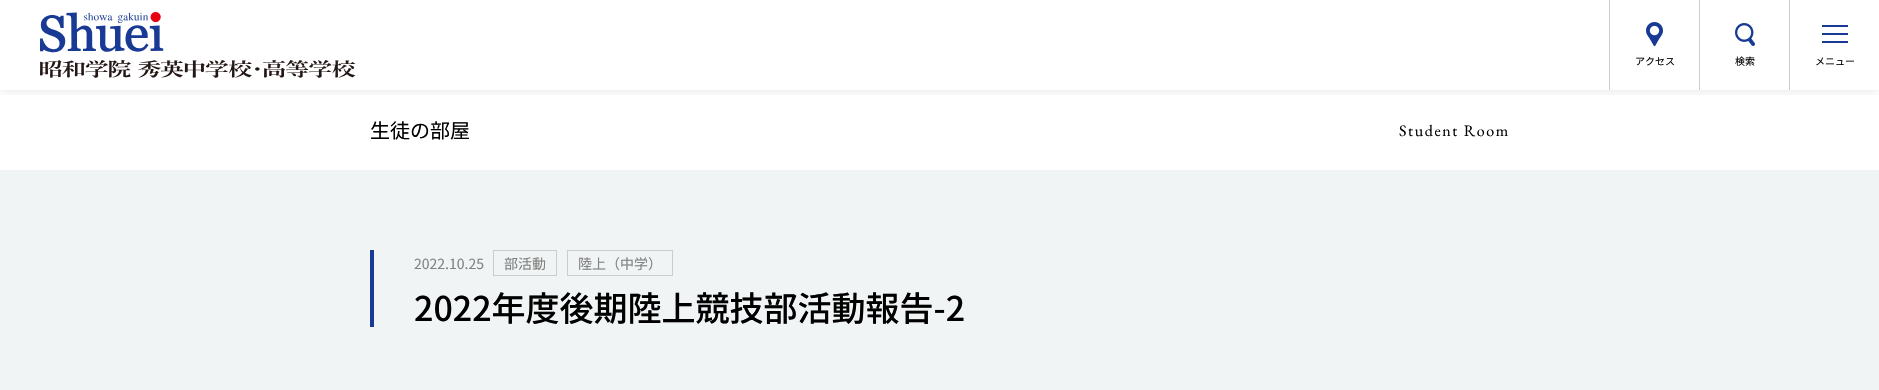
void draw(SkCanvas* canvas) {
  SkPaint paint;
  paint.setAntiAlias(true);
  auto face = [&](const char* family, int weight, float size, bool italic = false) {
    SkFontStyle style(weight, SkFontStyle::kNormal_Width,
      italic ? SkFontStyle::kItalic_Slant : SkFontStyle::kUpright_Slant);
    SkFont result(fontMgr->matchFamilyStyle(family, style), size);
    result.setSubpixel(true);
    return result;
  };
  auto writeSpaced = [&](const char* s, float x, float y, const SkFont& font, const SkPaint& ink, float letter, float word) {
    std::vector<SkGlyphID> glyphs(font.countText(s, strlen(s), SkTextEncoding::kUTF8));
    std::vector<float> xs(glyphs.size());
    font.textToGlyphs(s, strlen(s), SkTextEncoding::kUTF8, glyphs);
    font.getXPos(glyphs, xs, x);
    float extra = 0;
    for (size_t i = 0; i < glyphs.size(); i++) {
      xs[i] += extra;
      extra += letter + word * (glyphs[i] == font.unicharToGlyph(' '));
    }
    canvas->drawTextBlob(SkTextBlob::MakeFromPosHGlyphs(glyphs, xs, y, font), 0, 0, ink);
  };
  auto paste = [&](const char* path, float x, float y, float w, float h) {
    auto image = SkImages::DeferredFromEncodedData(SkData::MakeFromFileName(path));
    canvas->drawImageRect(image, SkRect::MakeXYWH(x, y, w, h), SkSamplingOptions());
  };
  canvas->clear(0xffffffff);
  canvas->save();
  canvas->clipRect(SkRect::MakeXYWH(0, 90, 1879, 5));
  paint.setColor(0x1a000000);
  paint.setMaskFilter(SkMaskFilter::MakeBlur(kNormal_SkBlurStyle, 6));
  canvas->drawRect(SkRect::MakeXYWH(0, 0, 1879, 90), paint);
  paint.setMaskFilter(nullptr);
  canvas->restore();
  paste("img/1.png", 40, 12, 316, 66);
  paint.setColor(0xffcccccc);
  canvas->drawRect(SkRect::MakeXYWH(1609, 0, 1, 90), paint);
  paste("img/2.png", 1646, 22, 17, 24);
  canvas->drawRect(SkRect::MakeXYWH(1699, 0, 1, 90), paint);
  paste("img/3.png", 1735, 23, 20, 23);
  canvas->drawRect(SkRect::MakeXYWH(1789, 0, 1, 90), paint);
  paste("img/4.png", 1822, 25, 26, 18);
  paint.setColor(0xfff0f4f4);
  canvas->drawRect(SkRect::MakeXYWH(0, 170, 1879, 220), paint);
  paint.setColor(0xff183a94);
  canvas->drawRect(SkRect::MakeXYWH(370, 250, 4, 77), paint);
  paint.setStroke(true);
  paint.setStrokeWidth(1);
  paint.setColor(0xffcccccc);
  canvas->drawRect(SkRect::MakeXYWH(493.5f, 250.5f, 63, 25), paint);
  canvas->drawRect(SkRect::MakeXYWH(567.5f, 250.5f, 105, 25), paint);
  auto f0 = face("Noto Sans JP", 400, 10);
  paint.setStroke(false);
  paint.setColor(0xff000000);
  {
    const struct { const char* s; float x, y; } items[] = {
      {"アクセス", 1635, 65},
      {"検索", 1735, 65},
      {"メニュー", 1815, 65},
    };
    for (auto [s, x, y] : items) {
      canvas->drawString(s, x, y, f0, paint);
    }
  }
  auto f1 = face("Noto Sans JP", 400, 20);
  canvas->drawString("生徒の部屋", 370, 138, f1, paint);
  auto f2 = face("EB Garamond", 400, 16);
  writeSpaced("Student Room", 1399, 136, f2, paint, 1.6f, 0);
  auto f3 = face("Noto Sans JP", 400, 14);
  paint.setColor(0xff828282);
  {
    const struct { const char* s; float x, y; } items[] = {
      {"2022.10.25", 414, 269},
      {"部活動", 504, 269},
      {"陸上（中学）", 578, 269},
    };
    for (auto [s, x, y] : items) {
      canvas->drawString(s, x, y, f3, paint);
    }
  }
  auto f4 = face("Noto Sans JP", 500, 34);
  paint.setColor(0xff000000);
  canvas->drawString("2022年度後期陸上競技部活動報告-2", 414, 321, f4, paint);
}
